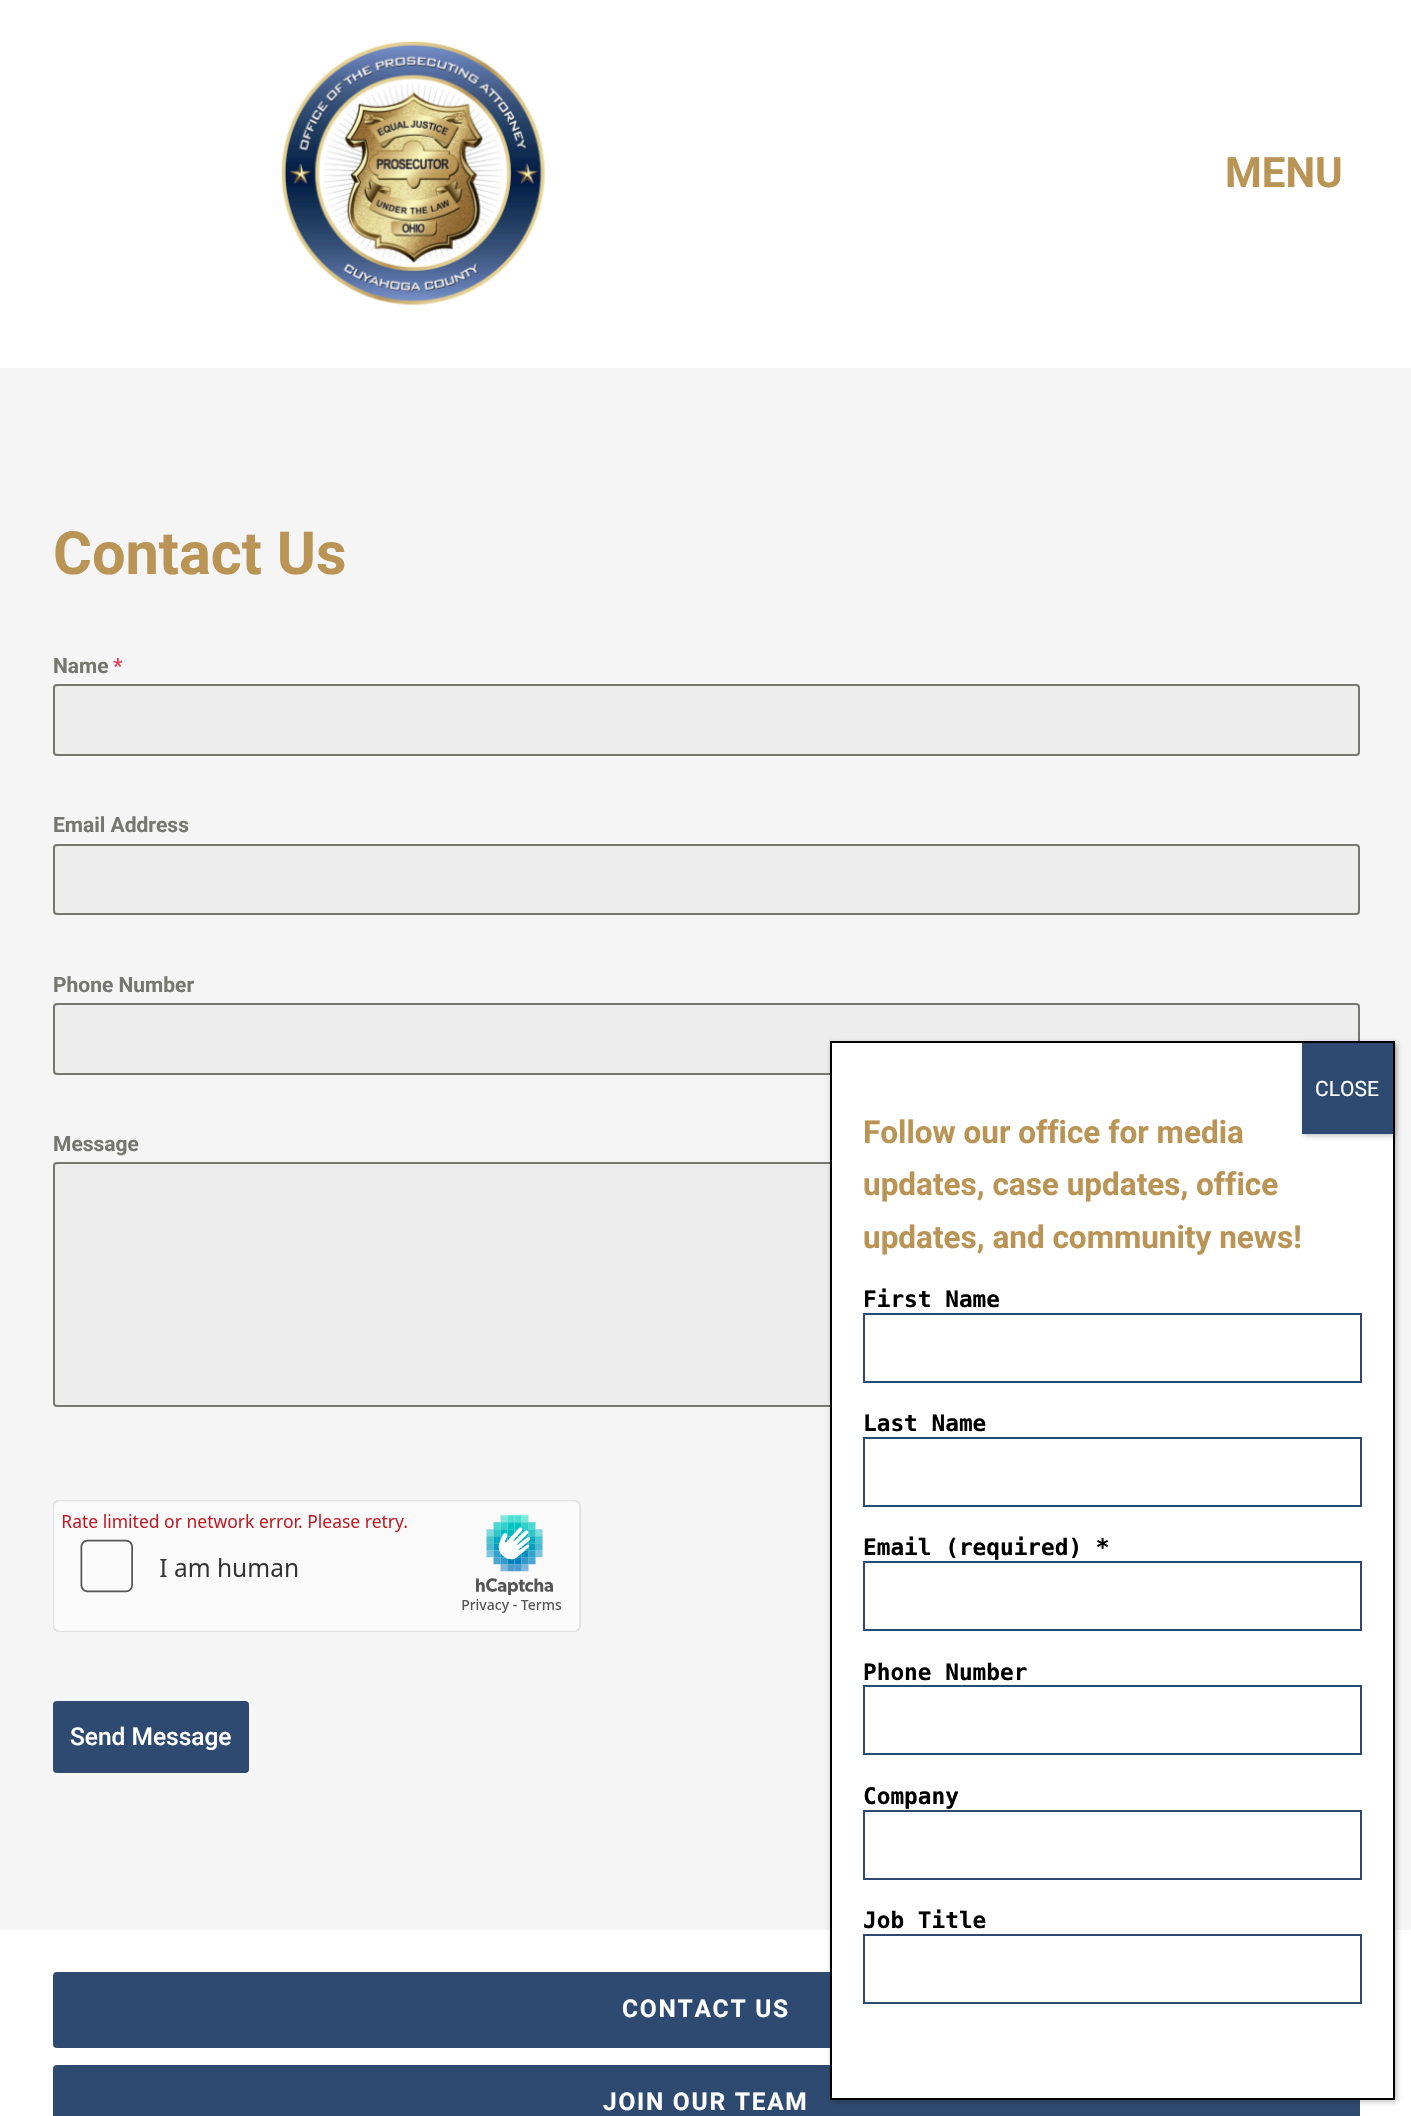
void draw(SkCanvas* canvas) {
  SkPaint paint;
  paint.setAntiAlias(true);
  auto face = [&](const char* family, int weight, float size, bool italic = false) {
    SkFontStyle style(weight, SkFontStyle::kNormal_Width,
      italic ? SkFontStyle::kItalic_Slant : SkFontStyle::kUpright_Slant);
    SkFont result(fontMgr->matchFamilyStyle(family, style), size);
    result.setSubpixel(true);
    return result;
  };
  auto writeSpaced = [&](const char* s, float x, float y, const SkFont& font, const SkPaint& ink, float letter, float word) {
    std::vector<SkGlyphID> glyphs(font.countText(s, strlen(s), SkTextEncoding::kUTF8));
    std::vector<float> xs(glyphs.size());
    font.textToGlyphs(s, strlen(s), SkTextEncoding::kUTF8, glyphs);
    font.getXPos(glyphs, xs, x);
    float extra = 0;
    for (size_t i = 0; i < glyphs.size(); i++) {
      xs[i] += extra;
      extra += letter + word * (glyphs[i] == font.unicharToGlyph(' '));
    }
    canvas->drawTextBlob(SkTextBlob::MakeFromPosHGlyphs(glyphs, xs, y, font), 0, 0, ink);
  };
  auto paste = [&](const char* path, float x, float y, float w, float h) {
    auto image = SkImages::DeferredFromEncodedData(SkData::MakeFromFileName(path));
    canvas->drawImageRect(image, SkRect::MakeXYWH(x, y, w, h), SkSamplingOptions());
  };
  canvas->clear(0xfff5f5f5);
  paint.setColor(0xffffffff);
  canvas->drawRect(SkRect::MakeXYWH(0, 0, 1411, 368), paint);
  paste("img/1.png", 281, 41, 264, 264);
  paint.setColor(0xffededed);
  canvas->drawRoundRect(SkRect::MakeXYWH(54, 685, 1305, 70), 3, 3, paint);
  paint.setStroke(true);
  paint.setStrokeWidth(2);
  paint.setColor(0xff777771);
  canvas->drawRoundRect(SkRect::MakeXYWH(54, 685, 1305, 70), 3, 3, paint);
  paint.setStroke(false);
  paint.setColor(0xffededed);
  canvas->drawRoundRect(SkRect::MakeXYWH(54, 845, 1305, 69), 3, 3, paint);
  paint.setStroke(true);
  paint.setColor(0xff777771);
  canvas->drawRoundRect(SkRect::MakeXYWH(54, 845, 1305, 69), 3, 3, paint);
  paint.setStroke(false);
  paint.setColor(0xffededed);
  canvas->drawRoundRect(SkRect::MakeXYWH(54, 1004, 1305, 70), 3, 3, paint);
  paint.setStroke(true);
  paint.setColor(0xff777771);
  canvas->drawRoundRect(SkRect::MakeXYWH(54, 1004, 1305, 70), 3, 3, paint);
  paint.setStroke(false);
  paint.setColor(0xffededed);
  canvas->drawRoundRect(SkRect::MakeXYWH(54, 1163, 1305, 243), 3, 3, paint);
  paint.setStroke(true);
  paint.setColor(0xff777771);
  canvas->drawRoundRect(SkRect::MakeXYWH(54, 1163, 1305, 243), 3, 3, paint);
  paste("img/2.png", 53, 1500, 528, 132);
  paint.setStroke(false);
  paint.setColor(0xff2f4a71);
  canvas->drawRoundRect(SkRect::MakeXYWH(53, 1701, 196, 72), 4, 4, paint);
  paint.setColor(0xffffffff);
  canvas->drawRect(SkRect::MakeXYWH(0, 1930, 1411, 186), paint);
  paint.setColor(0xff2f4a71);
  canvas->drawRoundRect(SkRect::MakeXYWH(53, 1972, 1307, 76), 4, 4, paint);
  canvas->drawRoundRect(SkRect::MakeXYWH(53, 2065, 1307, 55), 4, 4, paint);
  paint.setColor(0x3b020202);
  paint.setMaskFilter(SkMaskFilter::MakeBlur(kNormal_SkBlurStyle, 2.5f));
  canvas->drawRect(SkRect::MakeXYWH(831, 1043, 566, 1059), paint);
  paint.setMaskFilter(nullptr);
  paint.setColor(0xffffffff);
  canvas->drawRect(SkRect::MakeXYWH(831, 1042, 563, 1057), paint);
  paint.setStroke(true);
  paint.setColor(0xff000000);
  canvas->drawRect(SkRect::MakeXYWH(831, 1042, 563, 1057), paint);
  paint.setStroke(false);
  paint.setColor(0x3b020202);
  paint.setMaskFilter(SkMaskFilter::MakeBlur(kNormal_SkBlurStyle, 2.5f));
  canvas->drawRect(SkRect::MakeXYWH(1304, 1045, 91, 91), paint);
  paint.setMaskFilter(nullptr);
  paint.setColor(0xff2f4a71);
  canvas->drawRect(SkRect::MakeXYWH(1302, 1043, 91, 91), paint);
  paint.setStroke(true);
  canvas->drawRect(SkRect::MakeXYWH(864, 1314, 497, 68), paint);
  canvas->drawRect(SkRect::MakeXYWH(864, 1438, 497, 68), paint);
  canvas->drawRect(SkRect::MakeXYWH(864, 1562, 497, 68), paint);
  canvas->drawRect(SkRect::MakeXYWH(864, 1686, 497, 68), paint);
  canvas->drawRect(SkRect::MakeXYWH(864, 1811, 497, 68), paint);
  canvas->drawRect(SkRect::MakeXYWH(864, 1935, 497, 68), paint);
  auto f0 = face("Roboto", 700, 42);
  paint.setStroke(false);
  paint.setColor(0xffb99455);
  canvas->drawString("MENU", 1225, 187, f0, paint);
  auto f1 = face("Roboto", 700, 59.5f);
  canvas->drawString("Contact Us", 53, 574, f1, paint);
  auto f2 = face("Roboto", 700, 21);
  paint.setColor(0xff777771);
  canvas->drawString("Name", 53, 673, f2, paint);
  paint.setColor(0xffe04562);
  canvas->drawString("*", 113, 673, f2, paint);
  paint.setColor(0xff777771);
  {
    const struct { const char* s; float x, y; } items[] = {
      {"Email Address", 53, 832},
      {"Phone Number", 53, 992},
      {"Message", 53, 1151},
    };
    for (auto [s, x, y] : items) {
      canvas->drawString(s, x, y, f2, paint);
    }
  }
  auto f3 = face("Roboto", 500, 24.5f);
  paint.setColor(0xffffffff);
  canvas->drawString("Send Message", 70, 1745, f3, paint);
  auto f4 = face("Roboto", 700, 24.5f);
  writeSpaced("CONTACT US", 622, 2017, f4, paint, 1.75f, 0);
  writeSpaced("JOIN OUR TEAM", 603, 2110, f4, paint, 1.75f, 0);
  auto f5 = face("Roboto", 400, 21);
  canvas->drawString("CLOSE", 1315, 1096, f5, paint);
  auto f6 = face("Roboto", 700, 31.5f);
  paint.setColor(0xffb99455);
  {
    const struct { const char* s; float x, y; } items[] = {
      {"Follow our office for media", 863, 1143},
      {"updates, case updates, office", 863, 1195},
      {"updates, and community news!", 863, 1248},
    };
    for (auto [s, x, y] : items) {
      canvas->drawString(s, x, y, f6, paint);
    }
  }
  auto f7 = face("DejaVu Sans Mono", 700, 22.75f);
  paint.setColor(0xff000000);
  {
    const struct { const char* s; float x, y; } items[] = {
      {"First Name", 863, 1307},
      {"Last Name", 863, 1431},
      {"Email (required) *", 863, 1555},
      {"Phone Number", 863, 1680},
      {"Company", 863, 1804},
      {"Job Title", 863, 1928},
    };
    for (auto [s, x, y] : items) {
      canvas->drawString(s, x, y, f7, paint);
    }
  }
}
